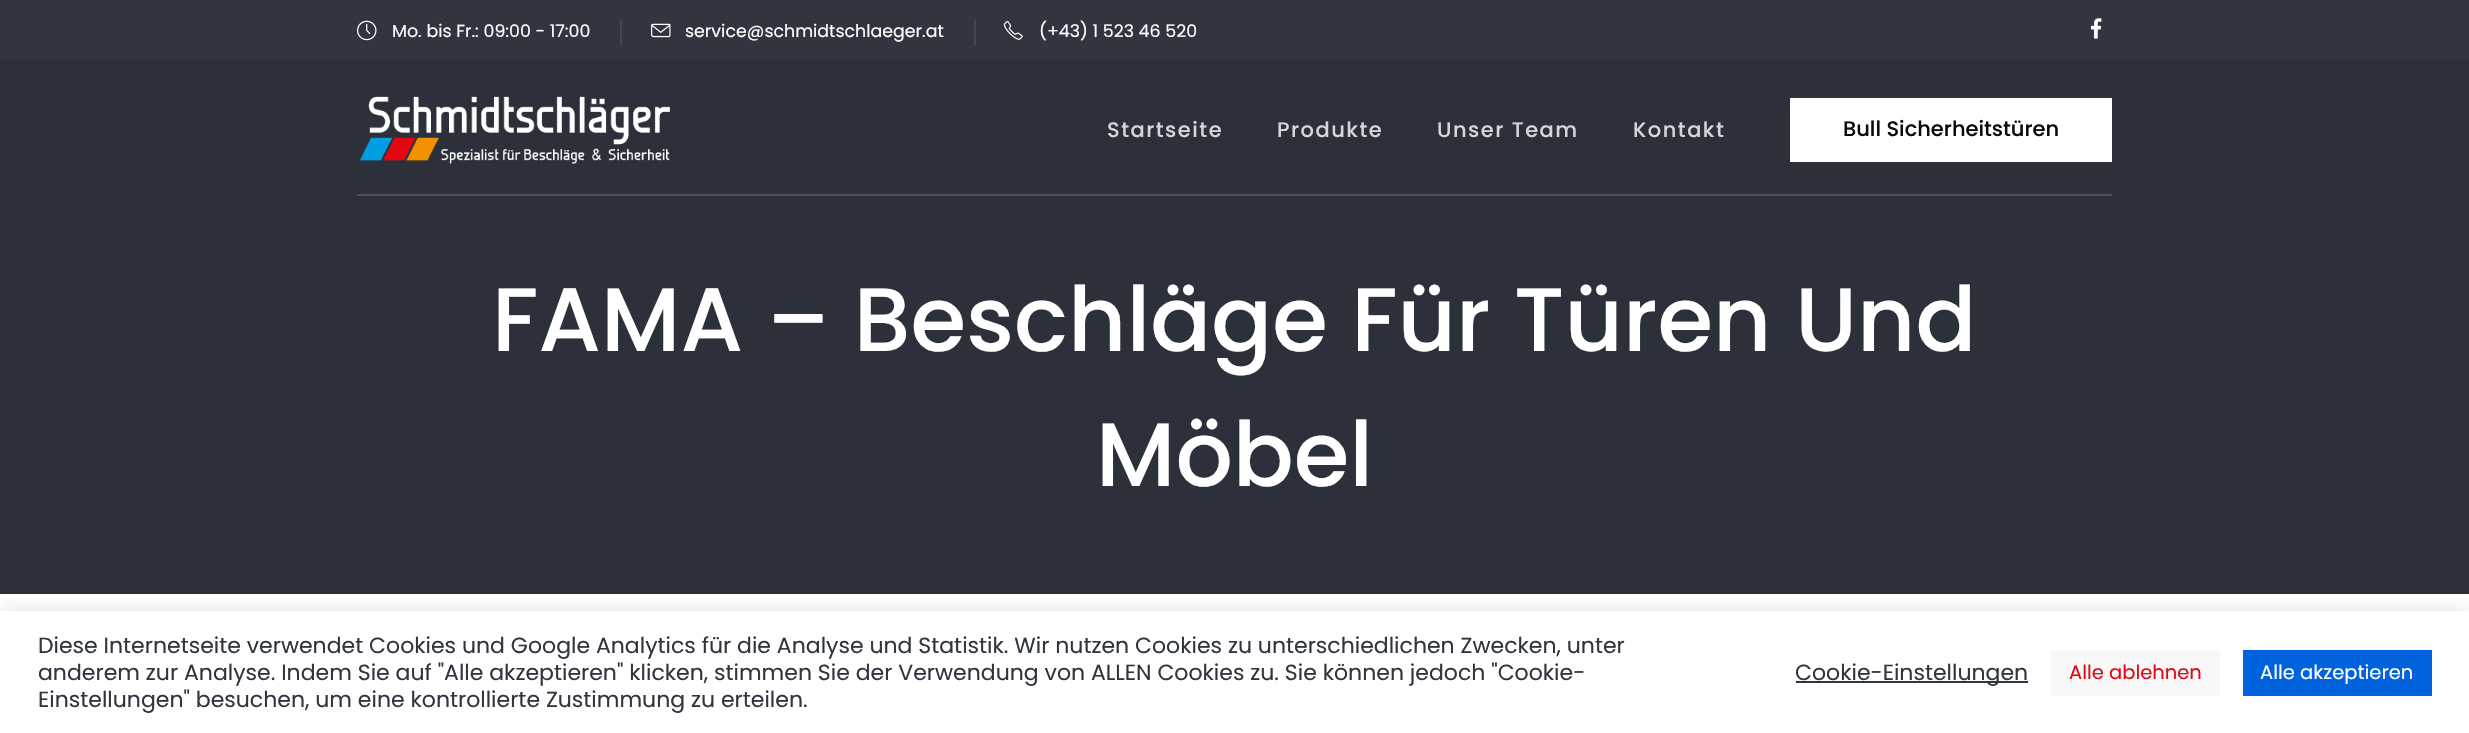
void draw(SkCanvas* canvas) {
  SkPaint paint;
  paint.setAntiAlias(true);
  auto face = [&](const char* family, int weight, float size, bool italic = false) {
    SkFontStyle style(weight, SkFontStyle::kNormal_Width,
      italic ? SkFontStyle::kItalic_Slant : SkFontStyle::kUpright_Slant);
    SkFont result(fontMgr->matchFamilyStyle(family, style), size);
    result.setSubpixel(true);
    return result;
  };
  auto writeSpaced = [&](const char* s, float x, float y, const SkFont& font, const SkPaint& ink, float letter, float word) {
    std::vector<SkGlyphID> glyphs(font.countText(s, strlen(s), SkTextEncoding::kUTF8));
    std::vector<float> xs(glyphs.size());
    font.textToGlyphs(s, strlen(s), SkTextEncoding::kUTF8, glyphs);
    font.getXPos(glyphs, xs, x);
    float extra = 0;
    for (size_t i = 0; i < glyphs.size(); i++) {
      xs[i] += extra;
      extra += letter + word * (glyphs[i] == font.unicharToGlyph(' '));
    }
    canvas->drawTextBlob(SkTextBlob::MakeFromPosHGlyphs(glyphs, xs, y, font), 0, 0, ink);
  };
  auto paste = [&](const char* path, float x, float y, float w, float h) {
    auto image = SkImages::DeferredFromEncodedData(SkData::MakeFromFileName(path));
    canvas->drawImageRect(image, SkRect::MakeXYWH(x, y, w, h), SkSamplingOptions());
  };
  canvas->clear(0xffffffff);
  paint.setColor(0xff303540);
  canvas->drawRect(SkRect::MakeXYWH(0, 0, 2469, 60), paint);
  paint.setColor(0xff424754);
  canvas->drawRect(SkRect::MakeXYWH(620, 20, 2, 25), paint);
  paste("img/1.png", 357, 20, 20, 21);
  canvas->drawRect(SkRect::MakeXYWH(974, 20, 2, 25), paint);
  paste("img/2.png", 651, 23, 20, 15);
  paste("img/3.png", 1003, 21, 20, 19);
  paste("img/4.png", 2091, 18, 11, 21);
  paint.setColor(0xff2b303b);
  canvas->drawRect(SkRect::MakeXYWH(0, 60, 2469, 534), paint);
  paint.setColor(0xff4b505d);
  canvas->drawRect(SkRect::MakeXYWH(357, 194, 1755, 2), paint);
  paste("img/5.png", 360, 96, 310, 68);
  paint.setColor(0xffffffff);
  canvas->drawRect(SkRect::MakeXYWH(1790, 98, 322, 64), paint);
  canvas->save();
  canvas->clipRect(SkRect::MakeXYWH(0, 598, 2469, 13));
  paint.setColor(0x4dacabab);
  paint.setMaskFilter(SkMaskFilter::MakeBlur(kNormal_SkBlurStyle, 7.5f));
  canvas->drawRect(SkRect::MakeXYWH(0, 609, 2469, 123), paint);
  paint.setMaskFilter(nullptr);
  canvas->restore();
  {
    const struct { float x, y, w, h; SkColor color; } items[] = {
      {1796, 681, 232, 2, 0xff303540},
      {2051, 650, 169, 46, 0xfff8f8f8},
      {2243, 650, 189, 46, 0xff0063dd},
    };
    for (auto [x, y, w, h, color] : items) {
      paint.setColor(color);
      canvas->drawRect(SkRect::MakeXYWH(x, y, w, h), paint);
    }
  }
  auto f0 = face("Poppins", 400, 17.4f);
  paint.setColor(0xffffffff);
  {
    const struct { const char* s; float x, y; } items[] = {
      {"Mo. bis Fr.: 09:00 - 17:00", 392, 37},
      {"service@schmidtschlaeger.at", 685, 37},
      {"(+43) 1 523 46 520", 1039, 37},
    };
    for (auto [s, x, y] : items) {
      canvas->drawString(s, x, y, f0, paint);
    }
  }
  auto f1 = face("Poppins", 500, 21);
  paint.setColor(0xffd5d6d8);
  {
    const struct { const char* s; float x, y; } items[] = {
      {"Startseite", 1107, 137},
      {"Produkte", 1277, 137},
      {"Unser Team", 1437, 137},
      {"Kontakt", 1633, 137},
    };
    for (auto [s, x, y] : items) {
      writeSpaced(s, x, y, f1, paint, 1.5f, 0);
    }
  }
  paint.setColor(0xff0a0a0a);
  canvas->drawString("Bull Sicherheitstüren", 1843, 136, f1, paint);
  auto f2 = face("Poppins", 500, 90);
  paint.setColor(0xffffffff);
  canvas->drawString("FAMA – Beschläge Für Türen Und", 492, 351, f2, paint);
  canvas->drawString("Möbel", 1096, 486, f2, paint);
  auto f3 = face("Poppins", 400, 22);
  paint.setColor(0xff303540);
  {
    const struct { const char* s; float x, y; } items[] = {
      {"Diese Internetseite verwendet Cookies und Google Analytics für die Analyse und Statistik. Wir nutzen Cookies zu unterschiedlichen Zwecken, unter", 38, 653},
      {"anderem zur Analyse. Indem Sie auf \"Alle akzeptieren\" klicken, stimmen Sie der Verwendung von ALLEN Cookies zu. Sie können jedoch \"Cookie-", 38, 680},
      {"Einstellungen\" besuchen, um eine kontrollierte Zustimmung zu erteilen.", 38, 707},
      {"Cookie-Einstellungen", 1795, 680},
    };
    for (auto [s, x, y] : items) {
      canvas->drawString(s, x, y, f3, paint);
    }
  }
  auto f4 = face("Poppins", 400, 19.5f);
  paint.setColor(0xffe20714);
  canvas->drawString("Alle ablehnen", 2069, 679, f4, paint);
  paint.setColor(0xffffffff);
  canvas->drawString("Alle akzeptieren", 2260, 679, f4, paint);
}
